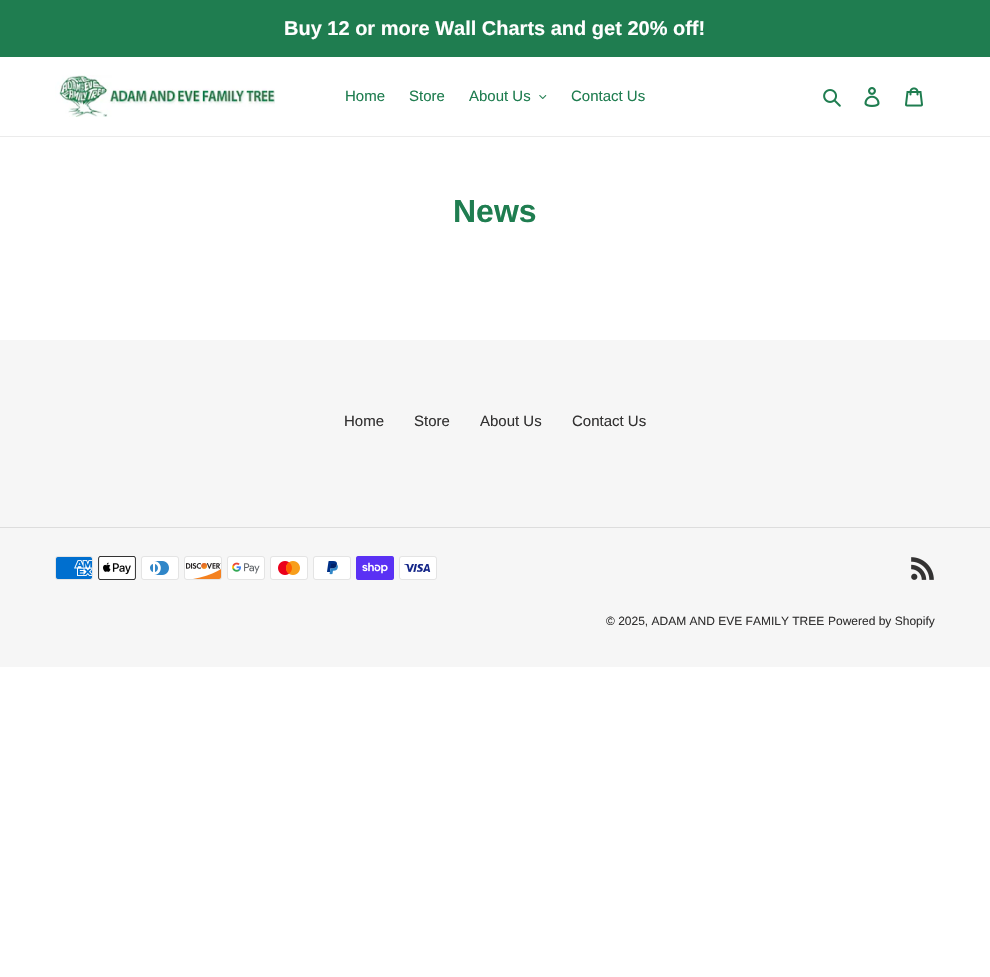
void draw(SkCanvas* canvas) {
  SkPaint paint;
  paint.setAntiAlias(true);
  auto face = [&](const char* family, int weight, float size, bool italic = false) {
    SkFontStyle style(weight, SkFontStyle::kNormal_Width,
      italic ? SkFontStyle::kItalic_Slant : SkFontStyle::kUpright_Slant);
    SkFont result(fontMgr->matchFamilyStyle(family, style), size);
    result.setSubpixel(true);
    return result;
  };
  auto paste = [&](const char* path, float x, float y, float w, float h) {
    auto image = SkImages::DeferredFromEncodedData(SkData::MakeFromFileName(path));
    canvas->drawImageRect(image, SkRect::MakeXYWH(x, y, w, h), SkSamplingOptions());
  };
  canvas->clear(0xffffffff);
  paint.setColor(0xff1f7d50);
  canvas->drawRect(SkRect::MakeXYWH(0, 0, 990, 57), paint);
  paint.setColor(0xffebebeb);
  canvas->drawRect(SkRect::MakeXYWH(0, 136, 990, 1), paint);
  paste("img/1.png", 55, 75, 220, 42);
  paste("img/2.png", 539, 95, 8, 4);
  paste("img/3.png", 823, 89, 18, 18);
  paste("img/4.png", 864, 87, 16, 20);
  paste("img/5.png", 905, 87, 18, 20);
  paint.setColor(0xfff6f6f6);
  canvas->drawRect(SkRect::MakeXYWH(0, 340, 990, 327), paint);
  paint.setColor(0xffdddddd);
  canvas->drawRect(SkRect::MakeXYWH(0, 527, 990, 1), paint);
  paste("img/6.png", 55, 556, 38, 24);
  paste("img/7.png", 98, 556, 38, 24);
  paste("img/8.png", 141, 556, 38, 24);
  paste("img/9.png", 184, 556, 38, 24);
  paste("img/10.png", 227, 556, 38, 24);
  paste("img/11.png", 270, 556, 38, 24);
  paste("img/12.png", 313, 556, 38, 24);
  paste("img/13.png", 356, 556, 38, 24);
  paste("img/14.png", 399, 556, 38, 24);
  paste("img/15.png", 911, 557, 23, 23);
  auto f0 = face("Liberation Sans", 700, 20);
  paint.setColor(0xffffffff);
  canvas->drawString("Buy 12 or more Wall Charts and get 20% off!", 284, 35, f0, paint);
  auto f1 = face("Liberation Sans", 400, 15);
  paint.setColor(0xff1f7d50);
  {
    const struct { const char* s; float x, y; } items[] = {
      {"Home", 345, 101},
      {"Store", 409, 101},
      {"About Us", 469, 101},
      {"Contact Us", 571, 101},
    };
    for (auto [s, x, y] : items) {
      canvas->drawString(s, x, y, f1, paint);
    }
  }
  auto f2 = face("Liberation Sans", 700, 32);
  canvas->drawString("News", 453, 222, f2, paint);
  paint.setColor(0xff333232);
  {
    const struct { const char* s; float x, y; } items[] = {
      {"Home", 344, 426},
      {"Store", 414, 426},
      {"About Us", 480, 426},
      {"Contact Us", 572, 426},
    };
    for (auto [s, x, y] : items) {
      canvas->drawString(s, x, y, f1, paint);
    }
  }
  auto f3 = face("Liberation Sans", 400, 12);
  canvas->drawString("© 2025, ADAM AND EVE FAMILY TREE", 606, 625, f3, paint);
  canvas->drawString("Powered by Shopify", 828, 625, f3, paint);
}
